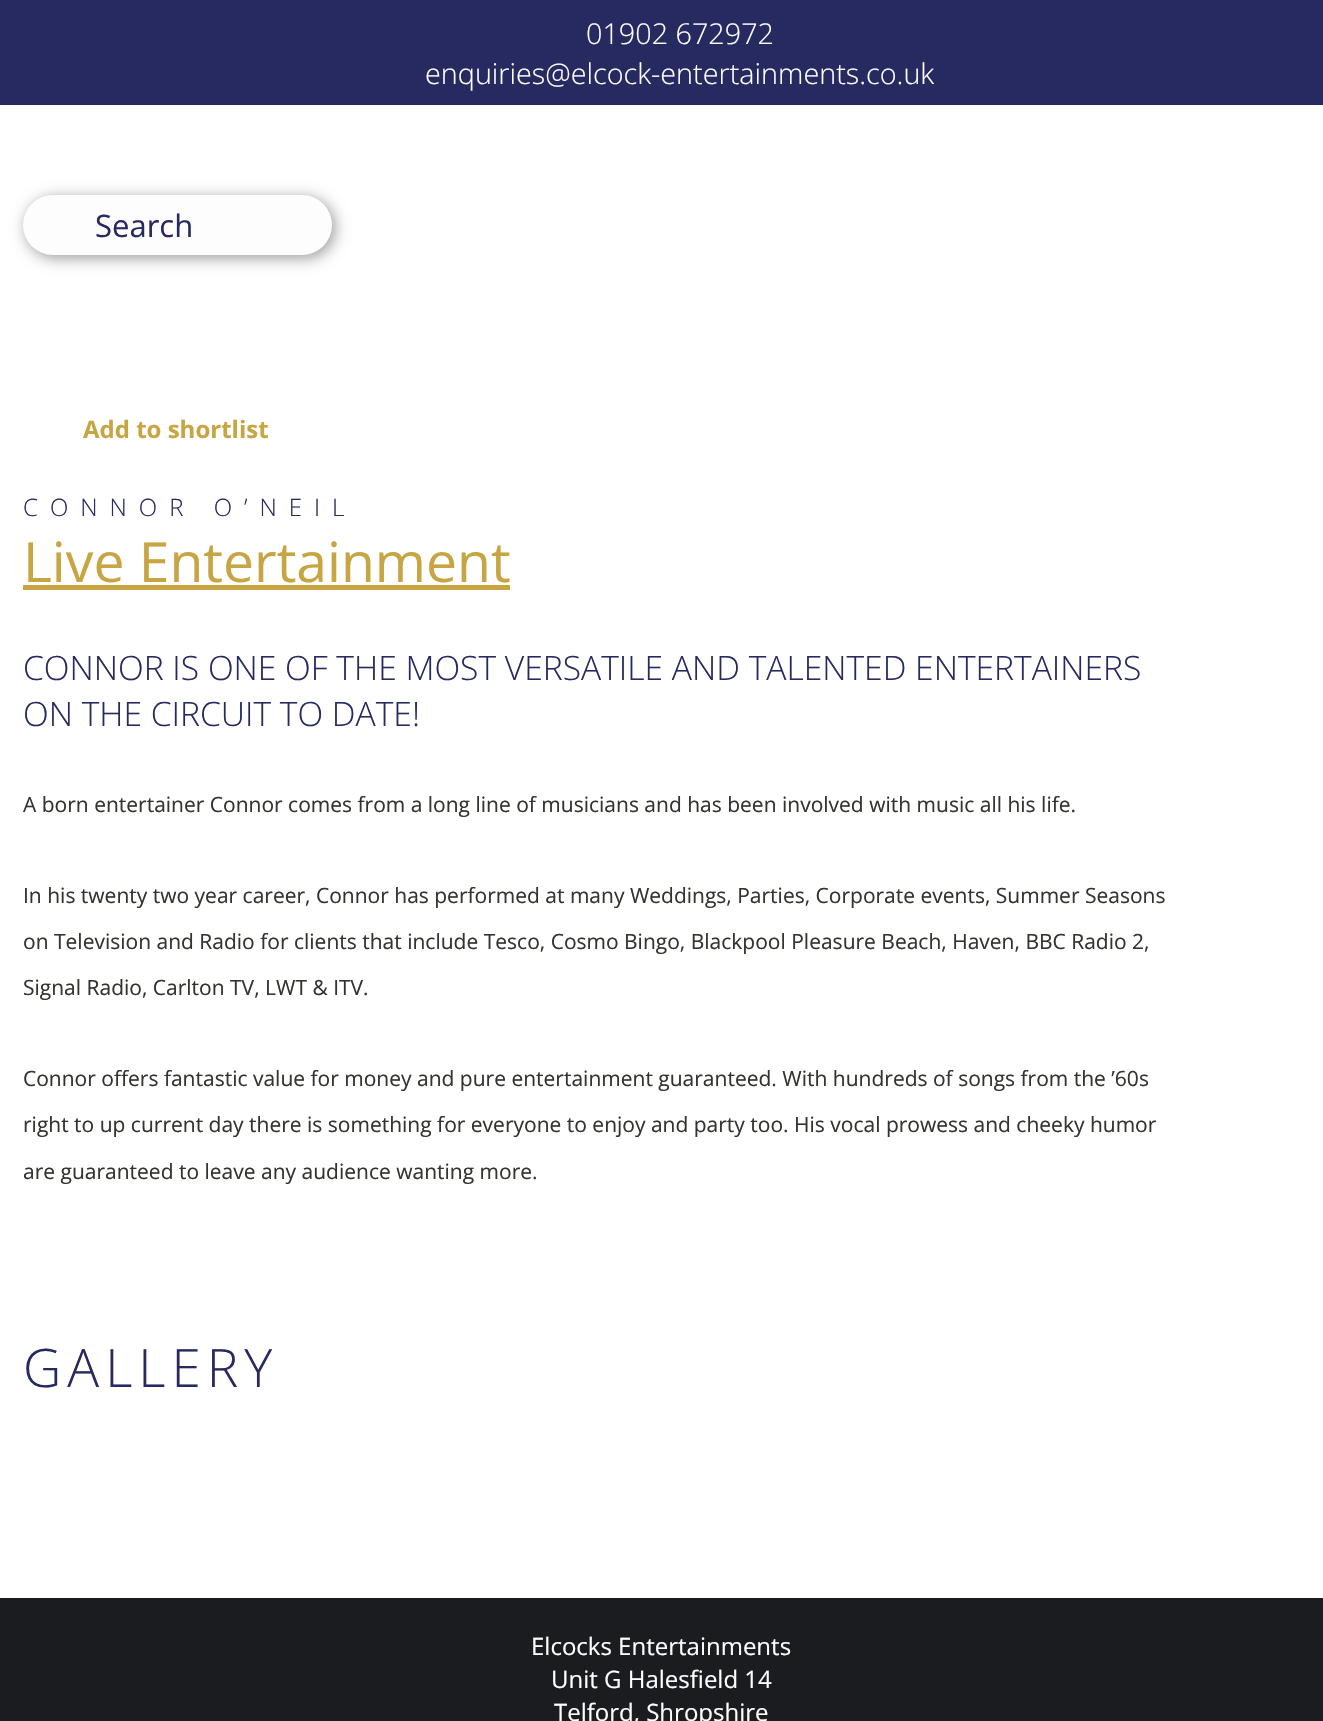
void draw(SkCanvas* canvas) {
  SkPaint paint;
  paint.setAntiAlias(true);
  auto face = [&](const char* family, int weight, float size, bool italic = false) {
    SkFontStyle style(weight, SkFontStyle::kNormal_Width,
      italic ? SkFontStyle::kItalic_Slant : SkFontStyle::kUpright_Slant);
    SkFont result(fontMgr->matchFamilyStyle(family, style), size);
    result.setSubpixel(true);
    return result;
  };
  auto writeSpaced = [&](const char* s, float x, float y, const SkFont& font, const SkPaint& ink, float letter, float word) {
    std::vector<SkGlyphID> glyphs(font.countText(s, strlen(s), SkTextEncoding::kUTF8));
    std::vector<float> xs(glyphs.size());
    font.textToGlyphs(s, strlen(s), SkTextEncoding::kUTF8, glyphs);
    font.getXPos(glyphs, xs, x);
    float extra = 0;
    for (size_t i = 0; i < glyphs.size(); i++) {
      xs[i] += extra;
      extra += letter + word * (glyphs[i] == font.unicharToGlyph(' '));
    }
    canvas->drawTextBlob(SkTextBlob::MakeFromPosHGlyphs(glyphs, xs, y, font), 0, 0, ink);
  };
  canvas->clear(0xffffffff);
  paint.setColor(0xff272961);
  canvas->drawRect(SkRect::MakeXYWH(0, 0, 1323, 105), paint);
  paint.setColor(0x66000000);
  paint.setMaskFilter(SkMaskFilter::MakeBlur(kNormal_SkBlurStyle, 7.5f));
  canvas->drawRoundRect(SkRect::MakeXYWH(26, 198, 309, 60), 30, 30, paint);
  paint.setMaskFilter(nullptr);
  paint.setColor(0xfffdfdfd);
  canvas->drawRoundRect(SkRect::MakeXYWH(23, 195, 309, 60), 30, 30, paint);
  paint.setColor(0xffc7a543);
  canvas->drawRect(SkRect::MakeXYWH(23, 585, 487, 5), paint);
  paint.setColor(0xff1a1c20);
  canvas->drawRect(SkRect::MakeXYWH(0, 1598, 1323, 123), paint);
  auto f0 = face("Open Sans", 300, 28.75f);
  paint.setColor(0xffffffff);
  canvas->drawString("01902 672972", 586, 44, f0, paint);
  canvas->drawString("enquiries@elcock-entertainments.co.uk", 425, 84, f0, paint);
  auto f1 = face("Open Sans", 400, 31);
  paint.setColor(0xff272961);
  canvas->drawString("Search", 95, 237, f1, paint);
  auto f2 = face("Open Sans", 700, 24);
  paint.setColor(0xffc7a543);
  canvas->drawString("Add to shortlist", 83, 438, f2, paint);
  auto f3 = face("Open Sans", 300, 24);
  paint.setColor(0xff272961);
  writeSpaced("CONNOR O’NEIL", 23, 516, f3, paint, 12, 0);
  auto f4 = face("Open Sans", 400, 55.25f);
  paint.setColor(0xffc7a543);
  canvas->drawString("Live Entertainment", 23, 582, f4, paint);
  auto f5 = face("Open Sans", 300, 33.6f);
  paint.setColor(0xff272961);
  canvas->drawString("CONNOR IS ONE OF THE MOST VERSATILE AND TALENTED ENTERTAINERS", 23, 680, f5, paint);
  canvas->drawString("ON THE CIRCUIT TO DATE!", 23, 726, f5, paint);
  auto f6 = face("Open Sans", 400, 21);
  paint.setColor(0xff33332f);
  {
    const struct { const char* s; float x, y; } items[] = {
      {"A born entertainer Connor comes from a long line of musicians and has been involved with music all his life.", 23, 812},
      {"In his twenty two year career, Connor has performed at many Weddings, Parties, Corporate events, Summer Seasons", 23, 903},
      {"on Television and Radio for clients that include Tesco, Cosmo Bingo, Blackpool Pleasure Beach, Haven, BBC Radio 2,", 23, 949},
      {"Signal Radio, Carlton TV, LWT & ITV.", 23, 995},
      {"Connor offers fantastic value for money and pure entertainment guaranteed. With hundreds of songs from the ’60s", 23, 1086},
      {"right to up current day there is something for everyone to enjoy and party too. His vocal prowess and cheeky humor", 23, 1132},
      {"are guaranteed to leave any audience wanting more.", 23, 1179},
    };
    for (auto [s, x, y] : items) {
      canvas->drawString(s, x, y, f6, paint);
    }
  }
  auto f7 = face("Open Sans", 300, 53);
  paint.setColor(0xff272961);
  writeSpaced("GALLERY", 23, 1387, f7, paint, 6, 0);
  auto f8 = face("Open Sans", 400, 24);
  paint.setColor(0xffffffff);
  {
    const struct { const char* s; float x, y; } items[] = {
      {"Elcocks Entertainments", 531, 1655},
      {"Unit G Halesfield 14", 551, 1688},
      {"Telford, Shropshire", 554, 1721},
    };
    for (auto [s, x, y] : items) {
      canvas->drawString(s, x, y, f8, paint);
    }
  }
}
